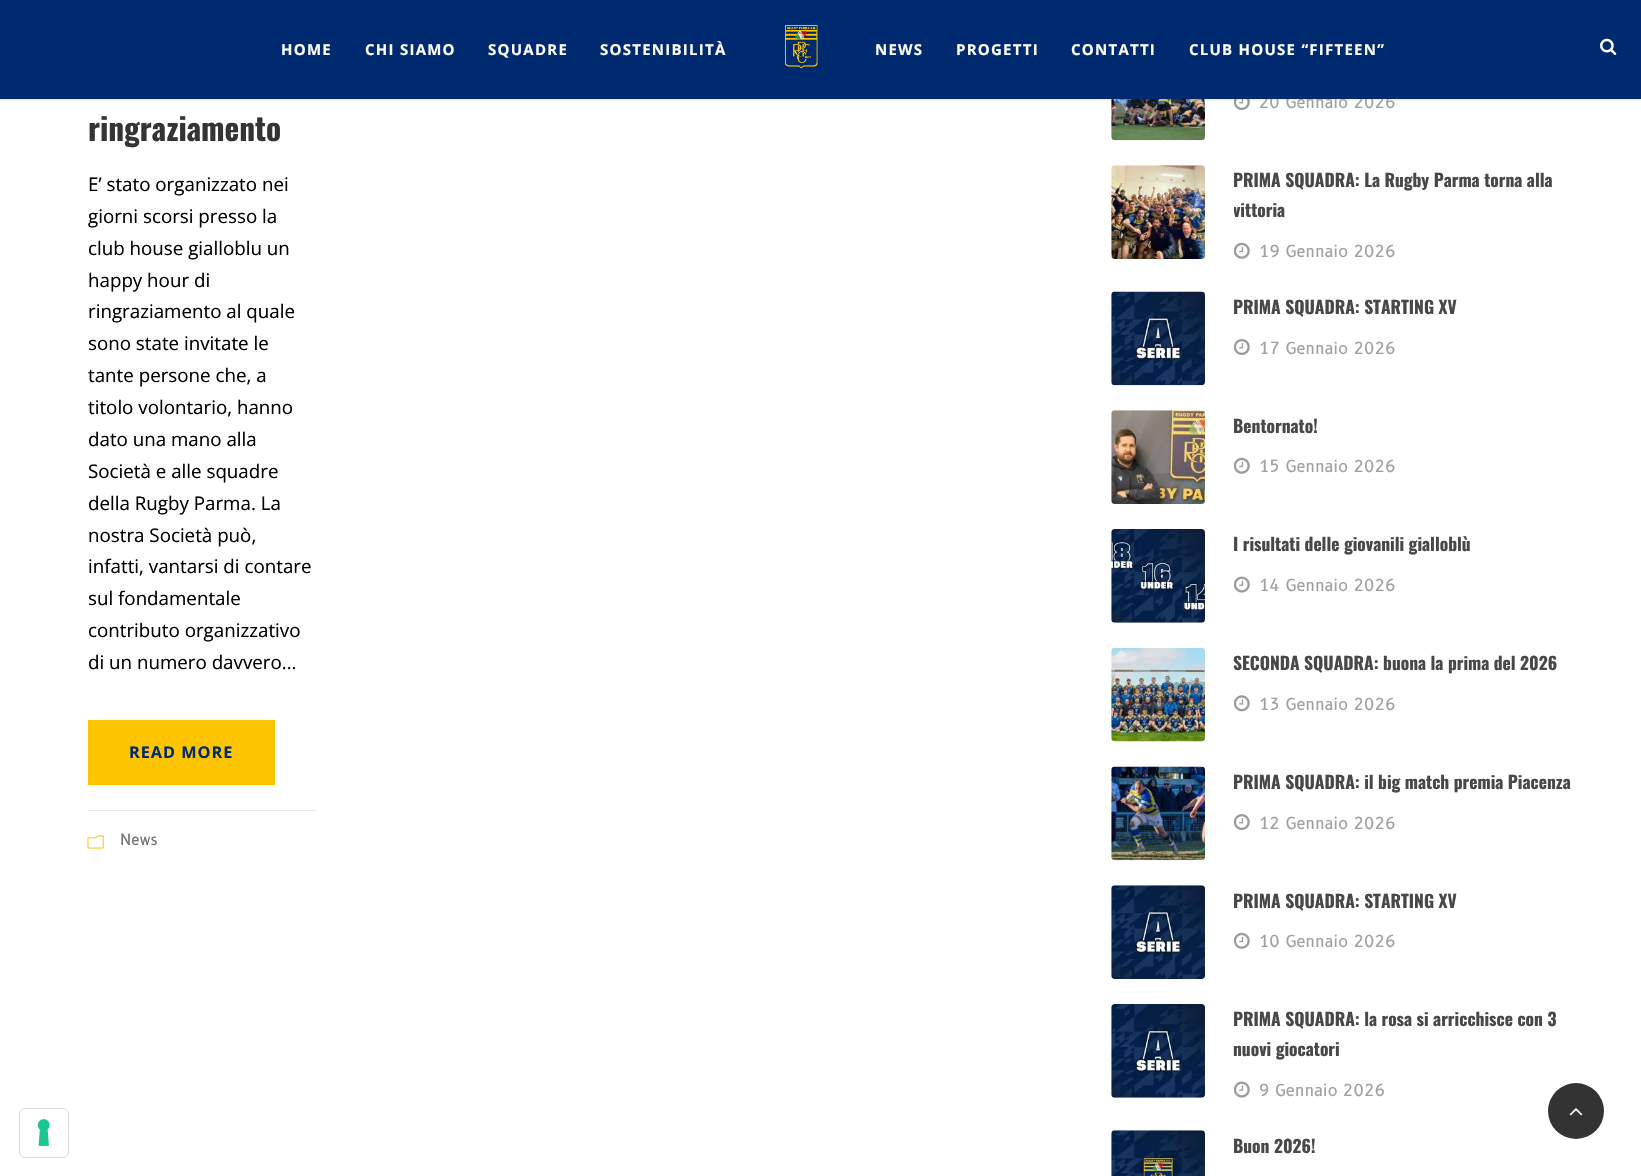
void draw(SkCanvas* canvas) {
  SkPaint paint;
  paint.setAntiAlias(true);
  auto face = [&](const char* family, int weight, float size, bool italic = false) {
    SkFontStyle style(weight, SkFontStyle::kNormal_Width,
      italic ? SkFontStyle::kItalic_Slant : SkFontStyle::kUpright_Slant);
    SkFont result(fontMgr->matchFamilyStyle(family, style), size);
    result.setSubpixel(true);
    return result;
  };
  auto writeSpaced = [&](const char* s, float x, float y, const SkFont& font, const SkPaint& ink, float letter, float word) {
    std::vector<SkGlyphID> glyphs(font.countText(s, strlen(s), SkTextEncoding::kUTF8));
    std::vector<float> xs(glyphs.size());
    font.textToGlyphs(s, strlen(s), SkTextEncoding::kUTF8, glyphs);
    font.getXPos(glyphs, xs, x);
    float extra = 0;
    for (size_t i = 0; i < glyphs.size(); i++) {
      xs[i] += extra;
      extra += letter + word * (glyphs[i] == font.unicharToGlyph(' '));
    }
    canvas->drawTextBlob(SkTextBlob::MakeFromPosHGlyphs(glyphs, xs, y, font), 0, 0, ink);
  };
  auto paste = [&](const char* path, float x, float y, float w, float h) {
    auto image = SkImages::DeferredFromEncodedData(SkData::MakeFromFileName(path));
    canvas->drawImageRect(image, SkRect::MakeXYWH(x, y, w, h), SkSamplingOptions());
  };
  canvas->clear(0xffffffff);
  paste("img/5.png", 1111, 99, 94, 42);
  paste("img/6.png", 1234, 99, 16, 12);
  paint.setColor(0x1a000000);
  paint.setMaskFilter(SkMaskFilter::MakeBlur(kNormal_SkBlurStyle, 1));
  canvas->drawRect(SkRect::MakeXYWH(0, 1, 1641, 99), paint);
  paint.setMaskFilter(nullptr);
  paint.setStroke(true);
  paint.setStrokeWidth(1);
  paint.setColor(0xffd9d9d9);
  canvas->drawRoundRect(SkRect::MakeXYWH(19.5f, 1108.5f, 49, 49), 5.5f, 5.5f, paint);
  paint.setStroke(false);
  paint.setColor(0xffffffff);
  canvas->drawRoundRect(SkRect::MakeXYWH(20, 1109, 48, 47), 5, 5, paint);
  paste("img/3.png", 37, 1119, 13, 27);
  paint.setColor(0xfffdc500);
  canvas->drawRect(SkRect::MakeXYWH(88, 720, 187, 65), paint);
  paint.setColor(0xffe6e6e6);
  canvas->drawRect(SkRect::MakeXYWH(88, 810, 228, 1), paint);
  paste("img/4.png", 87, 835, 17, 14);
  paste("img/7.png", 1111, 165, 94, 94);
  paste("img/8.png", 1234, 242, 16, 17);
  paste("img/9.png", 1111, 291, 94, 95);
  paste("img/10.png", 1234, 339, 16, 17);
  paste("img/11.png", 1111, 410, 94, 94);
  paste("img/8.png", 1234, 457, 16, 17);
  paste("img/12.png", 1111, 529, 94, 94);
  paste("img/13.png", 1234, 576, 16, 17);
  paste("img/14.png", 1111, 647, 94, 95);
  paste("img/15.png", 1234, 695, 16, 17);
  paste("img/16.png", 1111, 766, 94, 95);
  paste("img/10.png", 1234, 814, 16, 17);
  paste("img/17.png", 1111, 885, 94, 94);
  paste("img/8.png", 1234, 932, 16, 17);
  paste("img/18.png", 1111, 1004, 94, 94);
  paste("img/13.png", 1234, 1081, 16, 17);
  paste("img/19.png", 1111, 1130, 94, 46);
  paint.setColor(0xff333333);
  canvas->drawCircle(1576, 1111, 28, paint);
  paste("img/20.png", 1569, 1108, 14, 8);
  auto f0 = face("Oswald", 700, 31.25f);
  paint.setColor(0xff343434);
  canvas->drawString("ringraziamento", 88, 141, f0, paint);
  auto f1 = face("Open Sans", 400, 18.75f);
  paint.setColor(0xff000000);
  {
    const struct { const char* s; float x, y; } items[] = {
      {"E’ stato organizzato nei", 88, 191},
      {"giorni scorsi presso la", 88, 223},
      {"club house gialloblu un", 88, 255},
      {"happy hour di", 88, 287},
      {"ringraziamento al quale", 88, 318},
      {"sono state invitate le", 88, 350},
      {"tante persone che, a", 88, 382},
      {"titolo volontario, hanno", 88, 414},
      {"dato una mano alla", 88, 446},
      {"Società e alle squadre", 88, 478},
      {"della Rugby Parma. La", 88, 510},
      {"nostra Società può,", 88, 542},
      {"infatti, vantarsi di contare", 88, 573},
      {"sul fondamentale", 88, 605},
      {"contributo organizzativo", 88, 637},
      {"di un numero davvero...", 88, 669},
    };
    for (auto [s, x, y] : items) {
      canvas->drawString(s, x, y, f1, paint);
    }
  }
  auto f2 = face("Open Sans", 700, 16.25f);
  paint.setColor(0xff002a6f);
  writeSpaced("READ MORE", 129, 758, f2, paint, 1, 0);
  auto f3 = face("B612", 400, 15);
  paint.setColor(0xff6e6e6e);
  canvas->drawString("News", 120, 845, f3, paint);
  auto f4 = face("B612", 400, 16.25f);
  paint.setColor(0xffa0a0a0);
  canvas->drawString("20 Gennaio 2026", 1259, 108, f4, paint);
  paint.setColor(0xff002a6f);
  canvas->drawRect(SkRect::MakeXYWH(0, 0, 1641, 99), paint);
  auto f5 = face("Open Sans", 700, 15);
  paint.setColor(0xffffffff);
  {
    const struct { const char* s; float x, y; } items[] = {
      {"CLUB HOUSE “FIFTEEN”", 1189, 55},
      {"CONTATTI", 1071, 55},
      {"PROGETTI", 956, 55},
      {"NEWS", 875, 55},
      {"SOSTENIBILITÀ", 600, 55},
      {"SQUADRE", 488, 55},
      {"CHI SIAMO", 365, 55},
      {"HOME", 281, 55},
    };
    for (auto [s, x, y] : items) {
      writeSpaced(s, x, y, f5, paint, 1.25f, 0);
    }
  }
  paste("img/2.png", 1600, 38, 17, 17);
  paste("img/1.png", 785, 25, 33, 44);
  auto f6 = face("Oswald", 700, 17.5f);
  paint.setColor(0xff484848);
  canvas->drawString("PRIMA SQUADRA: La Rugby Parma torna alla", 1233, 187, f6, paint);
  canvas->save();
  canvas->clipRect(SkRect::MakeXYWH(1234, 165, 357, 101));
  canvas->drawString("vittoria", 1233, 217, f6, paint);
  canvas->restore();
  paint.setColor(0xffa0a0a0);
  canvas->drawString("19 Gennaio 2026", 1259, 257, f4, paint);
  paint.setColor(0xff484848);
  canvas->drawString("PRIMA SQUADRA: STARTING XV", 1233, 314, f6, paint);
  paint.setColor(0xffa0a0a0);
  canvas->drawString("17 Gennaio 2026", 1259, 354, f4, paint);
  paint.setColor(0xff484848);
  canvas->drawString("Bentornato!", 1233, 433, f6, paint);
  paint.setColor(0xffa0a0a0);
  canvas->drawString("15 Gennaio 2026", 1259, 472, f4, paint);
  paint.setColor(0xff484848);
  canvas->drawString("I risultati delle giovanili gialloblù", 1233, 551, f6, paint);
  paint.setColor(0xffa0a0a0);
  canvas->drawString("14 Gennaio 2026", 1259, 591, f4, paint);
  paint.setColor(0xff484848);
  canvas->drawString("SECONDA SQUADRA: buona la prima del 2026", 1233, 670, f6, paint);
  paint.setColor(0xffa0a0a0);
  canvas->drawString("13 Gennaio 2026", 1259, 710, f4, paint);
  paint.setColor(0xff484848);
  canvas->drawString("PRIMA SQUADRA: il big match premia Piacenza", 1233, 789, f6, paint);
  paint.setColor(0xffa0a0a0);
  canvas->drawString("12 Gennaio 2026", 1259, 829, f4, paint);
  paint.setColor(0xff484848);
  canvas->drawString("PRIMA SQUADRA: STARTING XV", 1233, 908, f6, paint);
  paint.setColor(0xffa0a0a0);
  canvas->drawString("10 Gennaio 2026", 1259, 947, f4, paint);
  paint.setColor(0xff484848);
  canvas->drawString("PRIMA SQUADRA: la rosa si arricchisce con 3", 1233, 1026, f6, paint);
  canvas->drawString("nuovi giocatori", 1233, 1056, f6, paint);
  paint.setColor(0xffa0a0a0);
  canvas->drawString("9 Gennaio 2026", 1259, 1096, f4, paint);
  paint.setColor(0xff484848);
  canvas->drawString("Buon 2026!", 1233, 1153, f6, paint);
}
